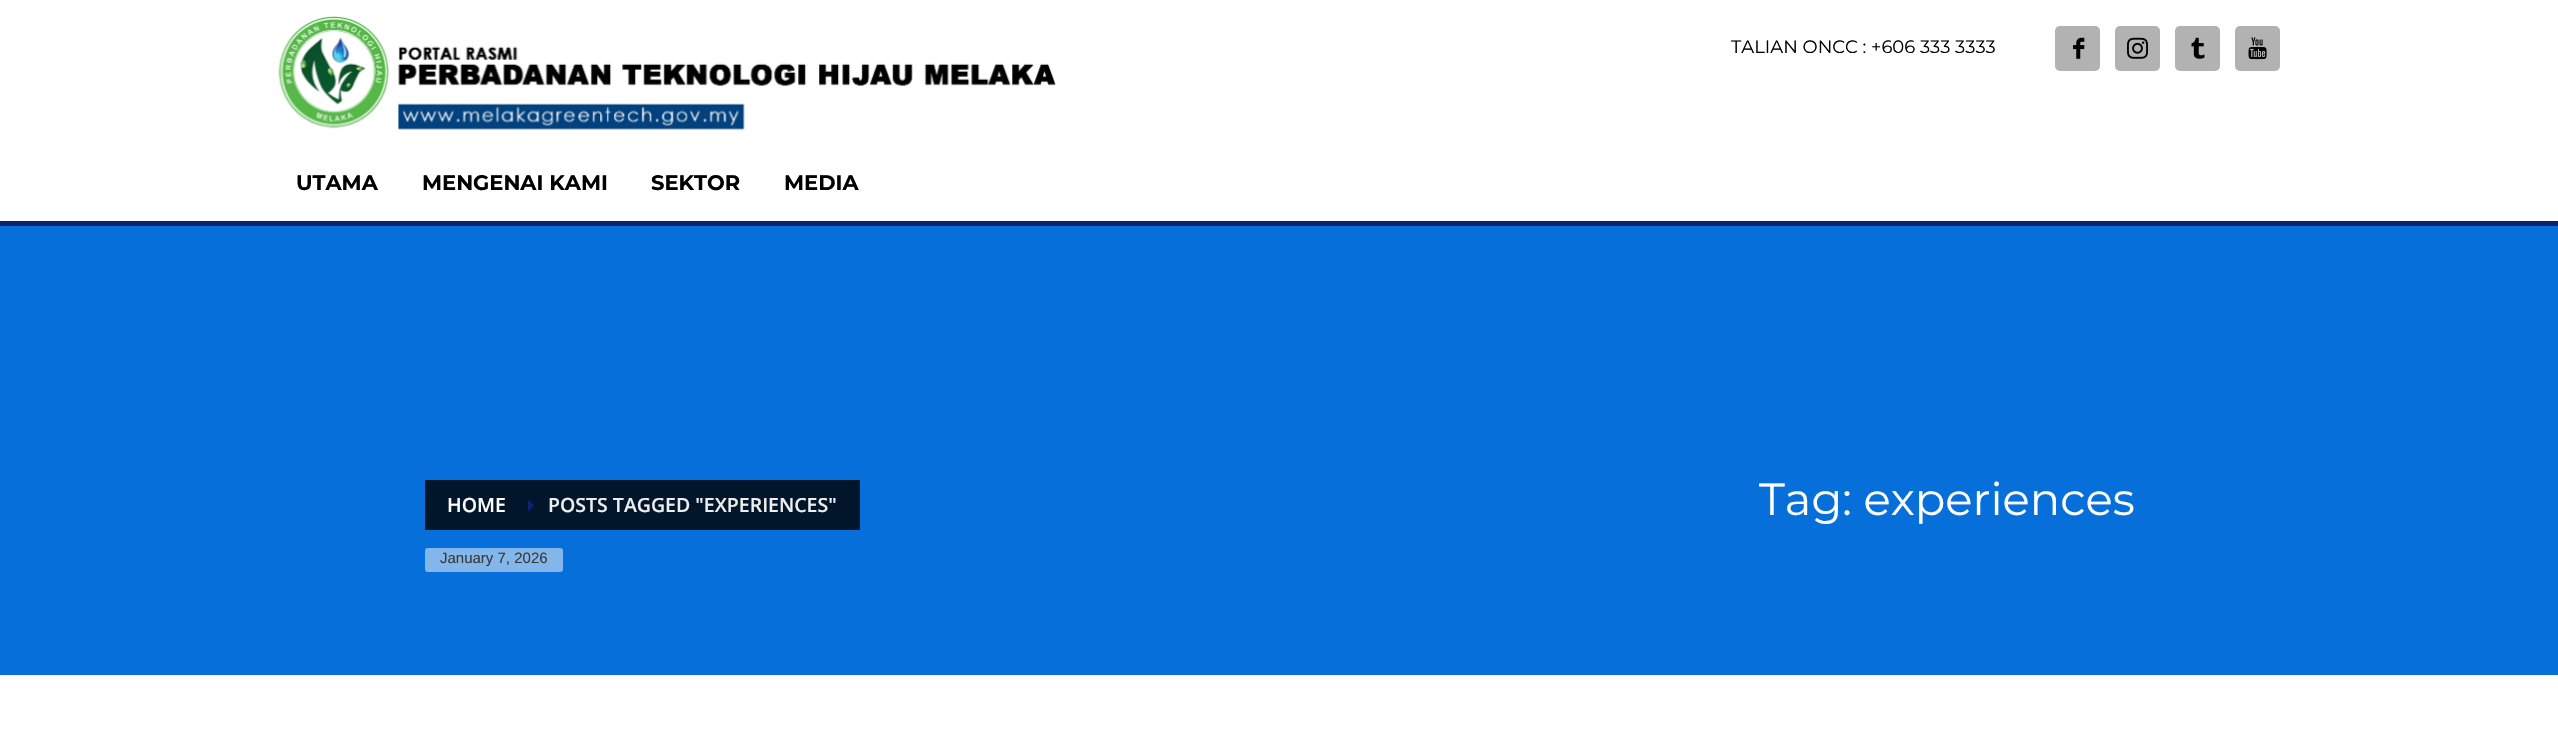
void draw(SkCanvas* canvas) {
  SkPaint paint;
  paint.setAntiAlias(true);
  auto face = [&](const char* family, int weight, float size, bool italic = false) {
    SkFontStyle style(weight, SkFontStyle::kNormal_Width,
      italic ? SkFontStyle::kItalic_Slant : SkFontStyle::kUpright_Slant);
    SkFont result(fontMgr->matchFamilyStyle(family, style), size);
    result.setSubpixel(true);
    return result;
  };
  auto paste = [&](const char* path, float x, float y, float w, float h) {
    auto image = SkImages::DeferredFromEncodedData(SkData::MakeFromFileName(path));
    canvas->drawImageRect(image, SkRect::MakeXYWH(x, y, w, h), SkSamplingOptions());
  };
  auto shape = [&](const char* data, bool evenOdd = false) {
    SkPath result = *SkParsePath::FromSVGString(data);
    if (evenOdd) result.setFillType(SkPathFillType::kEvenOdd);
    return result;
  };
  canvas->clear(0xffffffff);
  paste("img/1.png", 278, 16, 778, 114);
  paint.setColor(0xffb2b2b2);
  canvas->drawRoundRect(SkRect::MakeXYWH(2055, 26, 45, 45), 5, 5, paint);
  paste("img/2.png", 2073, 37, 12, 22);
  canvas->drawRoundRect(SkRect::MakeXYWH(2115, 26, 45, 45), 5, 5, paint);
  paste("img/3.png", 2127, 37, 21, 22);
  canvas->drawRoundRect(SkRect::MakeXYWH(2175, 26, 45, 45), 5, 5, paint);
  paste("img/4.png", 2191, 37, 14, 22);
  canvas->drawRoundRect(SkRect::MakeXYWH(2235, 26, 45, 45), 5, 5, paint);
  paste("img/5.png", 2248, 37, 19, 23);
  {
    const struct { float x, y, w, h; SkColor color; } items[] = {
      {0, 221, 2558, 5, 0xff0a2472},
      {0, 226, 2558, 449, 0xff066fd9},
      {425, 480, 435, 50, 0xff01162b},
    };
    for (auto [x, y, w, h, color] : items) {
      paint.setColor(color);
      canvas->drawRect(SkRect::MakeXYWH(x, y, w, h), paint);
    }
  }
  paint.setColor(0xff0a2472);
  canvas->drawPath(shape("M528 511.5V499.5L534 505.5Z"), paint);
  paint.setColor(0xff83b7ec);
  canvas->drawRoundRect(SkRect::MakeXYWH(425, 548, 138, 24), 3, 3, paint);
  auto f0 = face("Montserrat", 400, 18);
  paint.setColor(0xff000000);
  canvas->drawString("TALIAN ONCC : +606 333 3333", 1731, 53, f0, paint);
  auto f1 = face("Montserrat", 700, 21);
  {
    const struct { const char* s; float x, y; } items[] = {
      {"UTAMA", 296, 190},
      {"MENGENAI KAMI", 422, 190},
      {"SEKTOR", 651, 190},
      {"MEDIA", 784, 190},
    };
    for (auto [s, x, y] : items) {
      canvas->drawString(s, x, y, f1, paint);
    }
  }
  auto f2 = face("Open Sans", 600, 19.5f);
  paint.setColor(0xffffffff);
  canvas->drawString("HOME", 447, 512, f2, paint);
  paint.setColor(0xffeeeeee);
  canvas->drawString("POSTS TAGGED \"EXPERIENCES\"", 548, 512, f2, paint);
  auto f3 = face("Liberation Sans", 400, 15);
  paint.setColor(0xff383838);
  canvas->drawString("January 7, 2026", 440, 563, f3, paint);
  auto f4 = face("Montserrat", 400, 45);
  paint.setColor(0xffffffff);
  canvas->drawString("Tag: experiences", 1759, 515, f4, paint);
}
